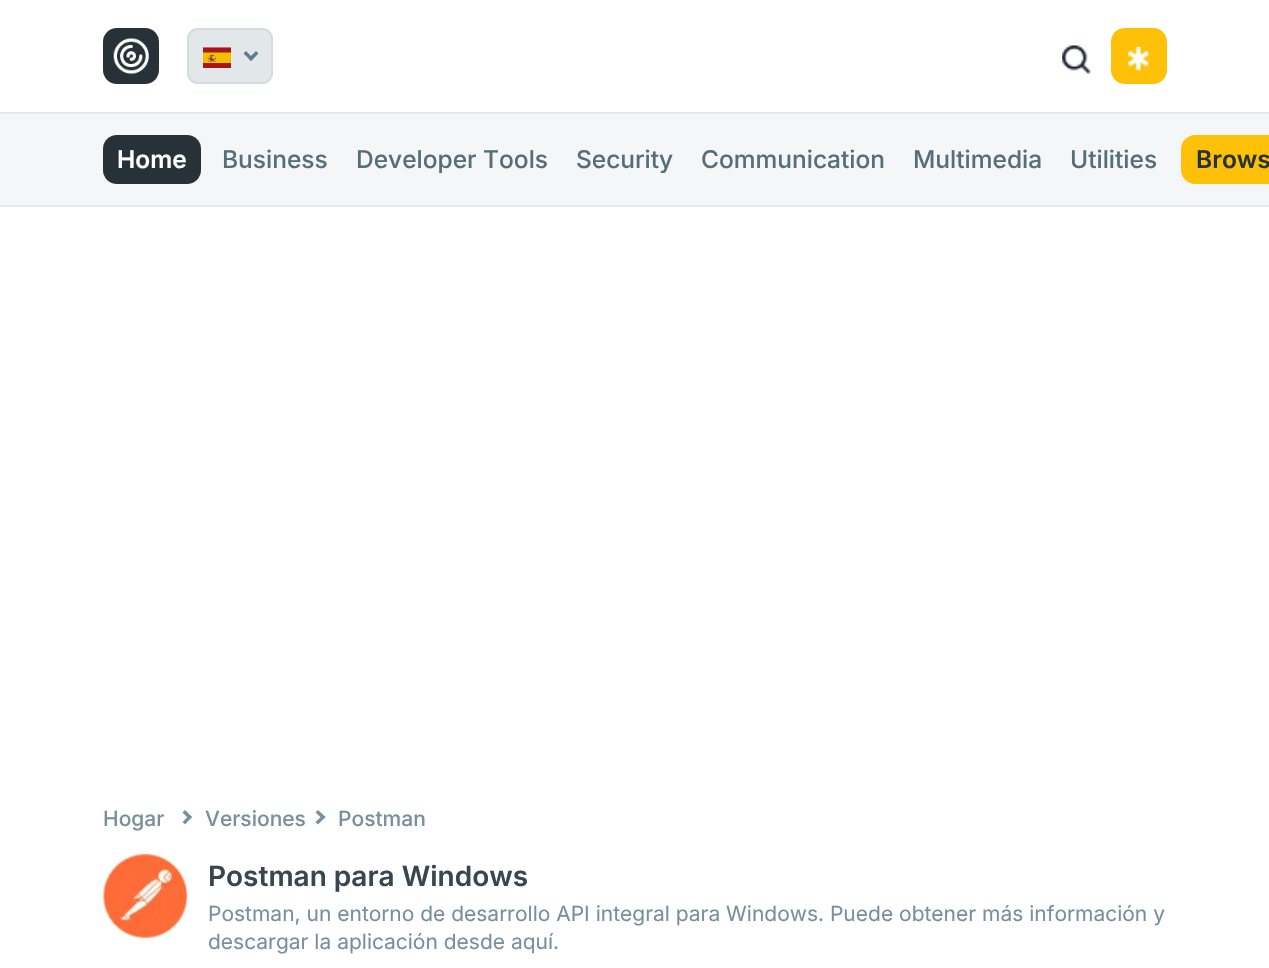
void draw(SkCanvas* canvas) {
  SkPaint paint;
  paint.setAntiAlias(true);
  auto face = [&](const char* family, int weight, float size, bool italic = false) {
    SkFontStyle style(weight, SkFontStyle::kNormal_Width,
      italic ? SkFontStyle::kItalic_Slant : SkFontStyle::kUpright_Slant);
    SkFont result(fontMgr->matchFamilyStyle(family, style), size);
    result.setSubpixel(true);
    return result;
  };
  auto paste = [&](const char* path, float x, float y, float w, float h) {
    auto image = SkImages::DeferredFromEncodedData(SkData::MakeFromFileName(path));
    canvas->drawImageRect(image, SkRect::MakeXYWH(x, y, w, h), SkSamplingOptions());
  };
  auto shape = [&](const char* data, bool evenOdd = false) {
    SkPath result = *SkParsePath::FromSVGString(data);
    if (evenOdd) result.setFillType(SkPathFillType::kEvenOdd);
    return result;
  };
  canvas->clear(0xffffffff);
  paint.setColor(0xff263238);
  canvas->drawRoundRect(SkRect::MakeXYWH(103, 28, 56, 56), 14, 14, paint);
  paste("img/1.png", 113, 38, 36, 36);
  paint.setColor(0xffe2e8ea);
  canvas->drawRoundRect(SkRect::MakeXYWH(187, 28, 86, 56), 11, 11, paint);
  paint.setStroke(true);
  paint.setStrokeWidth(2);
  paint.setColor(0xcccfd8dc);
  canvas->drawRoundRect(SkRect::MakeXYWH(188, 29, 84, 54), 10, 10, paint);
  paste("img/2.png", 203, 47, 28, 21);
  paint.setStroke(false);
  paint.setColor(0xff607d8b);
  canvas->drawPath(shape("M256 51L258.5 53.5L251 61L248.5 58.5Z"), paint);
  canvas->drawPath(shape("M246 51L253.5 58.5L251 61L243.5 53.5Z"), paint);
  paste("img/3.png", 1062, 45, 29, 29);
  paint.setColor(0xffffc107);
  canvas->drawRoundRect(SkRect::MakeXYWH(1111, 28, 56, 56), 14, 14, paint);
  paste("img/4.png", 1128, 46, 21, 25);
  {
    const struct { float x, y, w, h; SkColor color; } items[] = {
      {0, 114, 1269, 91, 0xfff4f6f7},
      {0, 112, 1269, 2, 0xffe2e7ea},
      {0, 205, 1269, 2, 0xffe2e7ea},
    };
    for (auto [x, y, w, h, color] : items) {
      paint.setColor(color);
      canvas->drawRect(SkRect::MakeXYWH(x, y, w, h), paint);
    }
  }
  paint.setColor(0xff263238);
  canvas->drawRoundRect(SkRect::MakeXYWH(103, 135, 98, 49), 14, 14, paint);
  paint.setColor(0xffffc107);
  canvas->drawPath(shape("M1195 135H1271V184H1195C1187.5 184 1181 177.5 1181 170V149C1181 141.5 1187.5 135 1195 135Z"), paint);
  paint.setColor(0xff78909c);
  canvas->drawPath(shape("M185 810L192 817L189.5 819.5L182.5 812.5Z"), paint);
  canvas->drawPath(shape("M189.5 815L192 817L185 824.5L182.5 822Z"), paint);
  canvas->drawPath(shape("M318 810L325.5 817L323 819.5L315.5 812.5Z"), paint);
  canvas->drawPath(shape("M323 815L325.5 817L318 824.5L315.5 822Z"), paint);
  paste("img/5.png", 103, 854, 85, 84);
  auto f0 = face("Inter", 600, 24.5f);
  paint.setColor(0xffffffff);
  canvas->drawString("Home", 117, 168, f0, paint);
  auto f1 = face("Inter", 500, 24.5f);
  paint.setColor(0xff546e7a);
  {
    const struct { const char* s; float x, y; } items[] = {
      {"Business", 222, 168},
      {"Developer Tools", 356, 168},
      {"Security", 576, 168},
      {"Communication", 701, 168},
      {"Multimedia", 913, 168},
      {"Utilities", 1070, 168},
    };
    for (auto [s, x, y] : items) {
      canvas->drawString(s, x, y, f1, paint);
    }
  }
  paint.setColor(0xff263238);
  canvas->drawString("Brows", 1196, 168, f0, paint);
  auto f2 = face("Inter", 500, 21);
  paint.setColor(0xff78909c);
  {
    const struct { const char* s; float x, y; } items[] = {
      {"Hogar", 103, 826},
      {"Versiones", 205, 826},
      {"Postman", 338, 826},
    };
    for (auto [s, x, y] : items) {
      canvas->drawString(s, x, y, f2, paint);
    }
  }
  auto f3 = face("Inter", 600, 28);
  paint.setColor(0xff37474f);
  canvas->drawString("Postman para Windows", 208, 886, f3, paint);
  auto f4 = face("Inter", 400, 21);
  paint.setColor(0xff78909c);
  canvas->drawString("Postman, un entorno de desarrollo API integral para Windows. Puede obtener más información y", 208, 921, f4, paint);
  canvas->drawString("descargar la aplicación desde aquí.", 208, 949, f4, paint);
}
